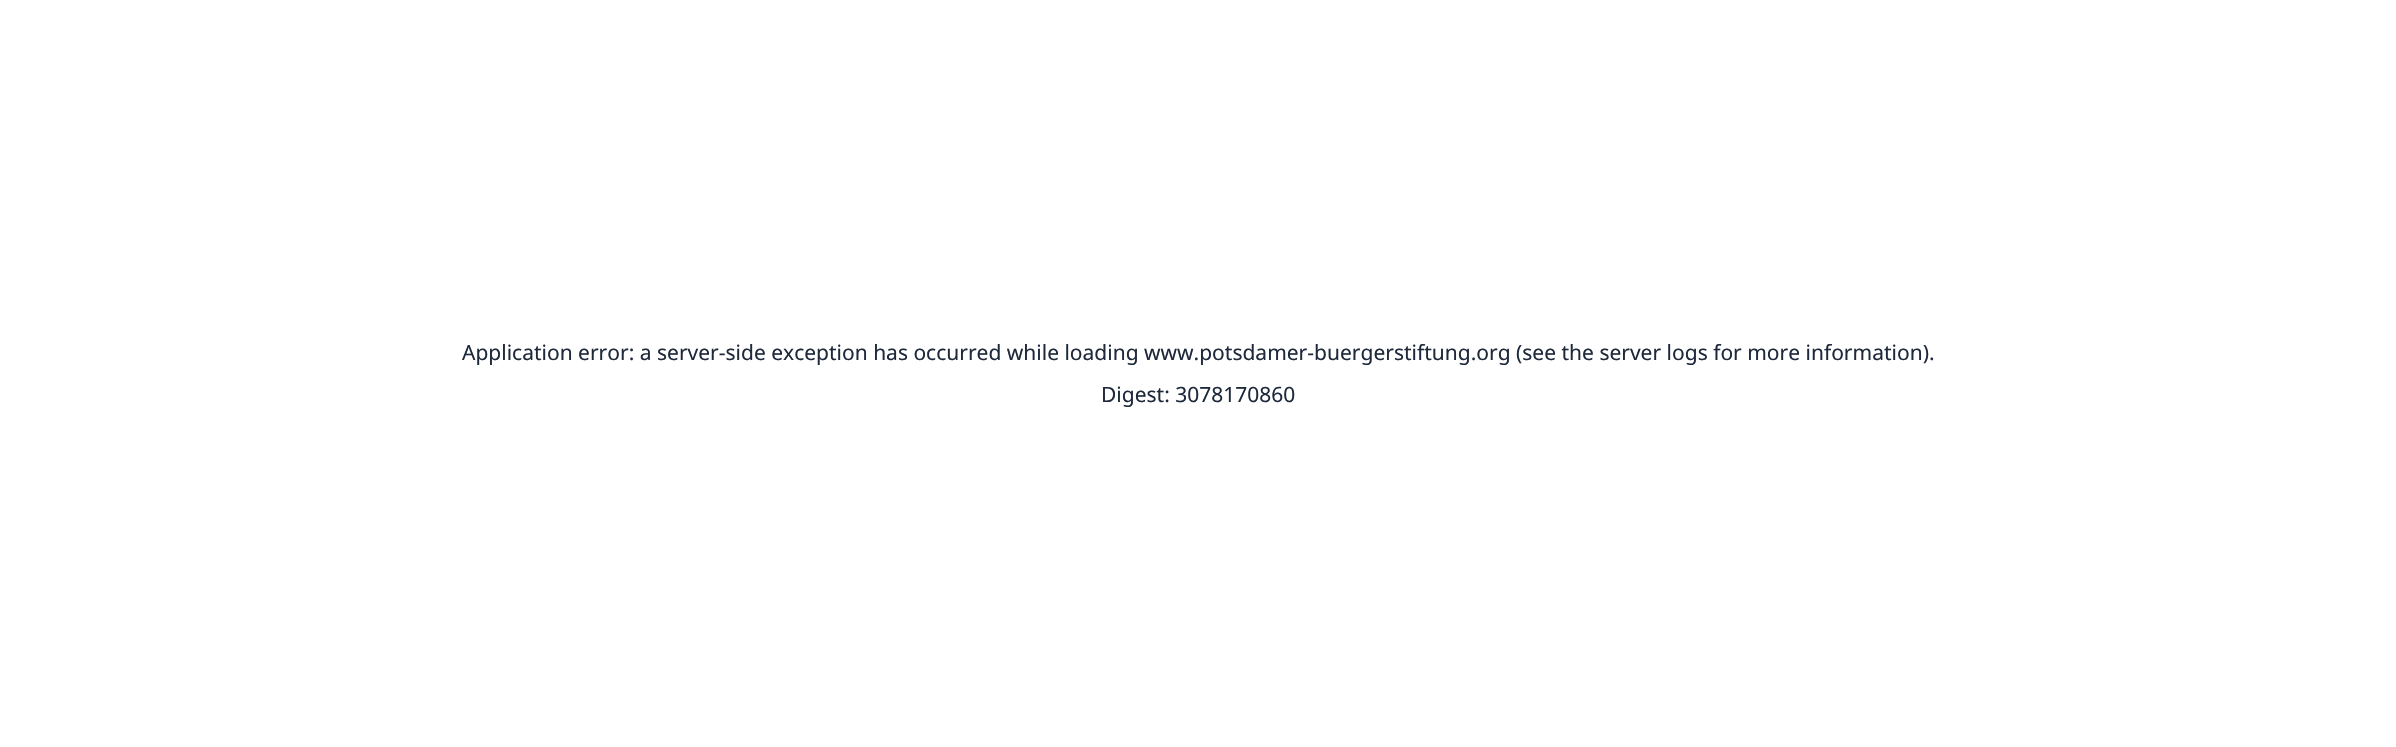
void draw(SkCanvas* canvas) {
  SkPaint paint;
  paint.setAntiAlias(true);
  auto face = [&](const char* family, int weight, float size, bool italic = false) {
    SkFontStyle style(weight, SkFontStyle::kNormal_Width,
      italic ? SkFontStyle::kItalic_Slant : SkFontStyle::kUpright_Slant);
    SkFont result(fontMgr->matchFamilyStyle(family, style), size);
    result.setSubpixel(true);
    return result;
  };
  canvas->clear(0xffffffff);
  auto f0 = face("Noto Sans", 400, 21);
  paint.setColor(0xff1e293b);
  canvas->drawString("Application error: a server-side exception has occurred while loading www.potsdamer-buergerstiftung.org (see the server logs for more information).", 462, 360, f0, paint);
  canvas->drawString("Digest: 3078170860", 1101, 402, f0, paint);
}
